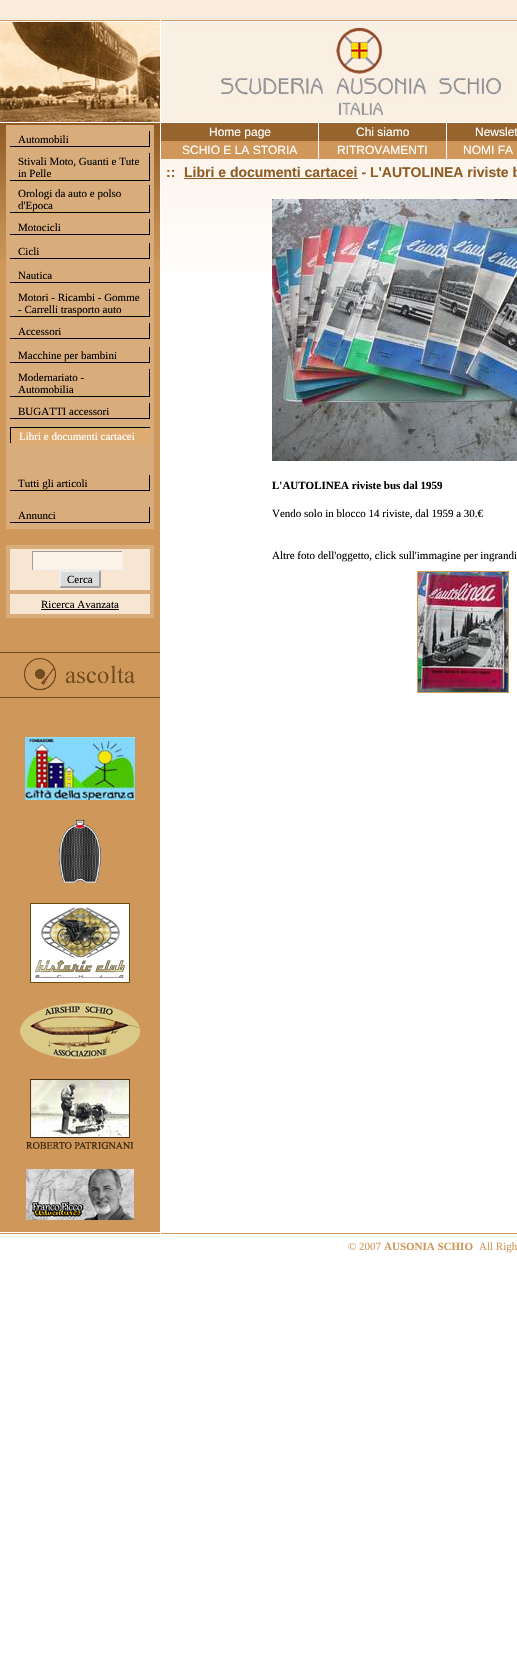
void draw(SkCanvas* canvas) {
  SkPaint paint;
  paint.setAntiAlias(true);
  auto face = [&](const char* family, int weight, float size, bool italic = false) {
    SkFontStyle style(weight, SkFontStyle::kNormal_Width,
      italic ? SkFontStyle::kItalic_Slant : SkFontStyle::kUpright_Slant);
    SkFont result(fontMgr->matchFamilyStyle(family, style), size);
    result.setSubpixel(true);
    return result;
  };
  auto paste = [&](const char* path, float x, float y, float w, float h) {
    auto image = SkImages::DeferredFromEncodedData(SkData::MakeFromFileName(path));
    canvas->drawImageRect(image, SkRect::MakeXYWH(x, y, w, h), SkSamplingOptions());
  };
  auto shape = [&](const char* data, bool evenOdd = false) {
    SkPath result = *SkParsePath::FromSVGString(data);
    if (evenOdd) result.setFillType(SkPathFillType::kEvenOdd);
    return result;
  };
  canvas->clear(0xffffffff);
  paste("img/1.png", 0, 0, 517, 271);
  paste("img/2.png", 0, 20, 160, 103);
  paint.setColor(0xffffffff);
  canvas->drawRect(SkRect::MakeXYWH(160, 20, 1, 251), paint);
  paste("img/3.png", 161, 20, 356, 103);
  paint.setColor(0xffcf975a);
  canvas->drawRect(SkRect::MakeXYWH(0, 261, 160, 971), paint);
  paste("img/4.png", 0, 123, 160, 138);
  {
    const struct { float x, y, w, h; SkColor color; } items[] = {
      {6, 125, 148, 404, 0xffd9ac7b},
      {149, 131, 1, 16, 0xff000000},
      {10, 146, 140, 1, 0xff000000},
      {149, 153, 1, 28, 0xff000000},
      {10, 180, 140, 1, 0xff000000},
      {149, 185, 1, 28, 0xff000000},
      {10, 212, 140, 1, 0xff000000},
      {149, 219, 1, 16, 0xff000000},
      {10, 234, 140, 1, 0xff000000},
      {149, 243, 1, 16, 0xff000000},
      {10, 258, 140, 1, 0xff000000},
      {149, 267, 1, 16, 0xff000000},
      {10, 282, 140, 1, 0xff000000},
      {149, 289, 1, 28, 0xff000000},
      {10, 316, 140, 1, 0xff000000},
      {149, 323, 1, 16, 0xff000000},
      {10, 338, 140, 1, 0xff000000},
      {149, 347, 1, 16, 0xff000000},
      {10, 362, 140, 1, 0xff000000},
      {149, 369, 1, 28, 0xff000000},
      {10, 396, 140, 1, 0xff000000},
      {149, 403, 1, 16, 0xff000000},
      {10, 418, 140, 1, 0xff000000},
      {11, 428, 139, 15, 0xffe0ab70},
      {10, 427, 140, 1, 0xff000000},
      {10, 427, 1, 16, 0xff000000},
      {149, 475, 1, 16, 0xff000000},
      {10, 490, 140, 1, 0xff000000},
      {149, 507, 1, 16, 0xff000000},
      {10, 522, 140, 1, 0xff000000},
      {6, 545, 148, 73, 0xffd9ac7b},
      {10, 549, 140, 41, 0xfff8e6d2},
      {33, 552, 89, 17, 0xfffef3e8},
      {32, 551, 91, 1, 0xff9f9f9f},
      {122, 551, 1, 19, 0xffeeeeee},
      {32, 569, 91, 1, 0xffeeeeee},
      {32, 551, 1, 19, 0xff9f9f9f},
      {59, 570, 42, 18, 0xffdbdbdb},
    };
    for (auto [x, y, w, h, color] : items) {
      paint.setColor(color);
      canvas->drawRect(SkRect::MakeXYWH(x, y, w, h), paint);
    }
  }
  paint.setColor(0xffeeeeee);
  canvas->drawPath(shape("M59 570H101L99 572H61Z"), paint);
  paint.setColor(0xff9f9f9f);
  canvas->drawPath(shape("M101 570V588L99 586V572Z"), paint);
  canvas->drawPath(shape("M101 588H59L61 586H99Z"), paint);
  paint.setColor(0xffeeeeee);
  canvas->drawPath(shape("M59 588V570L61 572V586Z"), paint);
  {
    const struct { float x, y, w, h; SkColor color; } items[] = {
      {10, 594, 140, 20, 0xfff8e6d2},
      {41, 609, 78, 1, 0xff000000},
      {0, 652, 160, 1, 0xff724b21},
    };
    for (auto [x, y, w, h, color] : items) {
      paint.setColor(color);
      canvas->drawRect(SkRect::MakeXYWH(x, y, w, h), paint);
    }
  }
  paste("img/5.png", 24, 658, 112, 33);
  canvas->drawRect(SkRect::MakeXYWH(0, 697, 160, 1), paint);
  paste("img/6.png", 25, 737, 110, 63);
  paste("img/7.png", 59, 820, 42, 63);
  paste("img/8.png", 30, 903, 100, 80);
  paste("img/9.png", 20, 1003, 120, 56);
  paste("img/10.png", 26, 1079, 108, 70);
  paste("img/11.png", 26, 1169, 108, 51);
  {
    const struct { float x, y, w, h; SkColor color; } items[] = {
      {161, 123, 356, 18, 0xff96642c},
      {318, 123, 1, 18, 0xffffffff},
      {446, 123, 1, 18, 0xffffffff},
      {161, 141, 356, 18, 0xffcf975a},
      {318, 141, 1, 18, 0xffffffff},
      {446, 141, 1, 18, 0xffffffff},
      {184, 178, 174, 1, 0xff8f5c25},
    };
    for (auto [x, y, w, h, color] : items) {
      paint.setColor(color);
      canvas->drawRect(SkRect::MakeXYWH(x, y, w, h), paint);
    }
  }
  paste("img/12.png", 272, 199, 245, 262);
  paint.setStroke(true);
  paint.setStrokeWidth(1);
  paint.setColor(0xffcf975a);
  canvas->drawRect(SkRect::MakeXYWH(417.5f, 571.5f, 91, 121), paint);
  paste("img/13.png", 418, 572, 90, 120);
  paint.setStroke(false);
  canvas->drawRect(SkRect::MakeXYWH(0, 1233, 160, 1), paint);
  canvas->drawRect(SkRect::MakeXYWH(161, 1233, 356, 1), paint);
  auto f0 = face("Liberation Serif", 400, 11);
  paint.setColor(0xff000000);
  {
    const struct { const char* s; float x, y; } items[] = {
      {"Automobili", 18, 143},
      {"Stivali Moto, Guanti e Tute", 18, 165},
      {"in Pelle", 18, 177},
      {"Orologi da auto e polso", 18, 197},
      {"d'Epoca", 18, 209},
      {"Motocicli", 18, 231},
      {"Cicli", 18, 255},
      {"Nautica", 18, 279},
      {"Motori - Ricambi - Gomme", 18, 301},
      {"- Carrelli trasporto auto", 18, 313},
      {"Accessori", 18, 335},
      {"Macchine per bambini", 18, 359},
      {"Modernariato -", 18, 381},
      {"Automobilia", 18, 393},
      {"BUGATTI accessori", 18, 415},
    };
    for (auto [s, x, y] : items) {
      canvas->drawString(s, x, y, f0, paint);
    }
  }
  paint.setColor(0xffffffff);
  canvas->drawString("Libri e documenti cartacei", 19, 440, f0, paint);
  paint.setColor(0xff000000);
  {
    const struct { const char* s; float x, y; } items[] = {
      {"Tutti gli articoli", 18, 487},
      {"Annunci", 18, 519},
      {"Cerca", 67, 583},
      {"Ricerca Avanzata", 41, 608},
    };
    for (auto [s, x, y] : items) {
      canvas->drawString(s, x, y, f0, paint);
    }
  }
  auto f1 = face("Liberation Sans", 400, 12);
  paint.setColor(0xffffffff);
  {
    const struct { const char* s; float x, y; } items[] = {
      {"Home page", 209, 136},
      {"Chi siamo", 356, 136},
      {"Newslet", 475, 136},
      {"SCHIO E LA STORIA", 182, 154},
      {"RITROVAMENTI", 337, 154},
      {"NOMI FA", 463, 154},
    };
    for (auto [s, x, y] : items) {
      canvas->drawString(s, x, y, f1, paint);
    }
  }
  auto f2 = face("Liberation Sans", 700, 14);
  paint.setColor(0xff8f5c25);
  canvas->drawString("::", 166, 177, f2, paint);
  canvas->drawString("Libri e documenti cartacei - L'AUTOLINEA riviste b", 184, 177, f2, paint);
  auto f3 = face("Liberation Serif", 700, 11);
  paint.setColor(0xff000000);
  canvas->drawString("L'AUTOLINEA riviste bus dal 1959", 272, 489, f3, paint);
  canvas->drawString("Vendo solo in blocco 14 riviste, dal 1959 a 30.€", 272, 517, f0, paint);
  canvas->drawString("Altre foto dell'oggetto, click sull'immagine per ingrandi", 272, 559, f0, paint);
  paint.setColor(0xffcf975a);
  canvas->drawString("© 2007", 348, 1250, f0, paint);
  canvas->drawString("AUSONIA SCHIO", 384, 1250, f3, paint);
  canvas->drawString("All Righ", 479, 1250, f0, paint);
}
